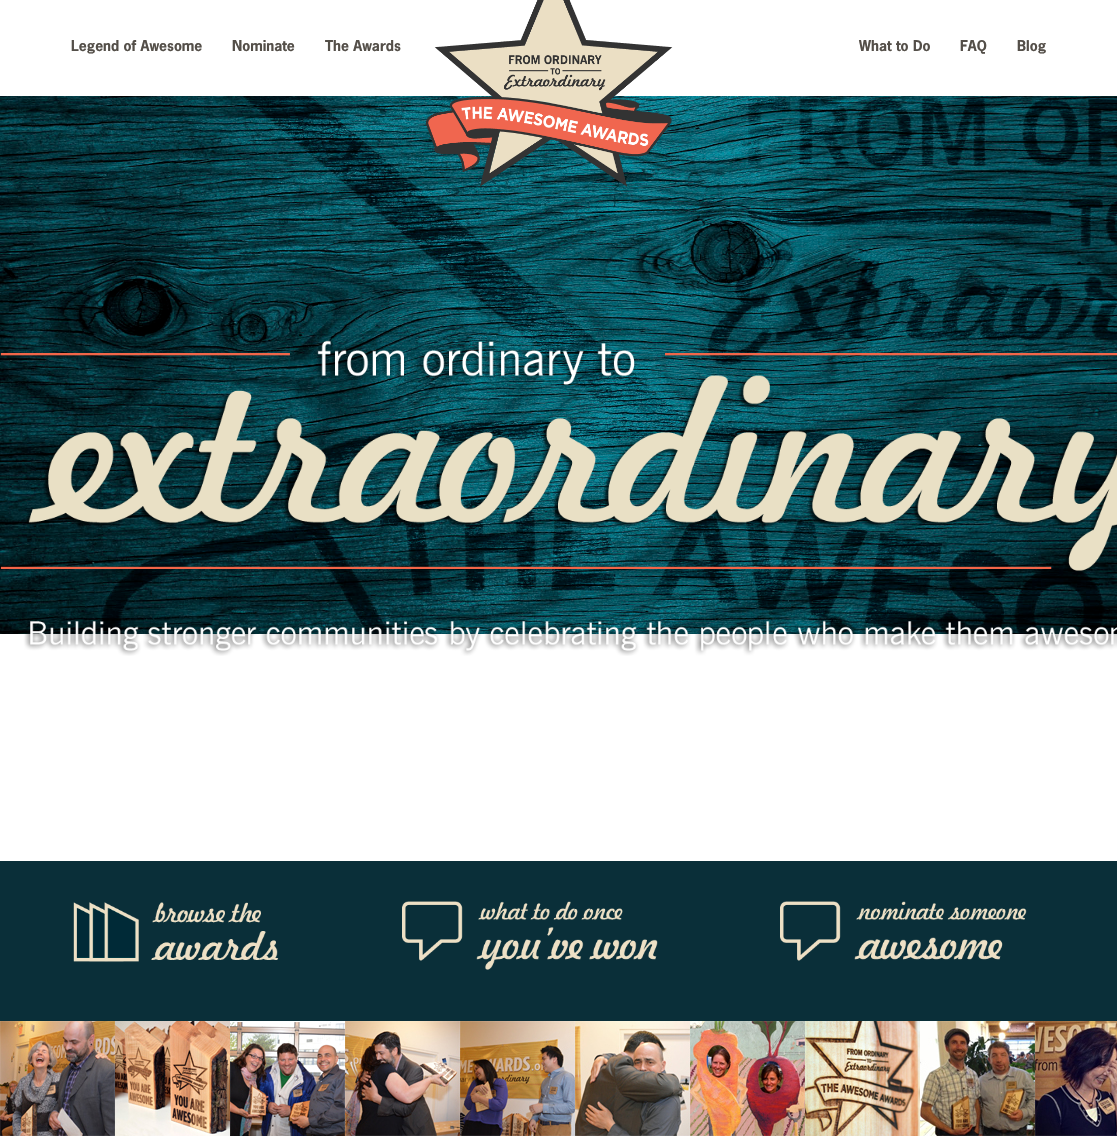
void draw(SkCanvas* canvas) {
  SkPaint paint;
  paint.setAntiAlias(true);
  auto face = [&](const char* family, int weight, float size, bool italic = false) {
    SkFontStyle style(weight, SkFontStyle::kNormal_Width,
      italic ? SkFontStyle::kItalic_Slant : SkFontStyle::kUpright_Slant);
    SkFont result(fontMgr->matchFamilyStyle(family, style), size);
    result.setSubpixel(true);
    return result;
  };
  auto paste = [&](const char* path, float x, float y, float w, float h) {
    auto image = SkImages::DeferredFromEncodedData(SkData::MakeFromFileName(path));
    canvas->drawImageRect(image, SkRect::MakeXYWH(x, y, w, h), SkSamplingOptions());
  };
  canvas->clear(0xffffffff);
  paste("img/2.png", 0, 96, 1117, 538);
  paste("img/1.png", 425, 0, 248, 187);
  paste("img/3.png", 0, 339, 1117, 317);
  paint.setColor(0xff0a2f39);
  canvas->drawRect(SkRect::MakeXYWH(0, 861, 1117, 160), paint);
  paste("img/4.png", 73, 902, 206, 60);
  paste("img/5.png", 402, 901, 256, 69);
  paste("img/6.png", 780, 901, 247, 60);
  paste("img/7.png", 0, 1021, 1117, 115);
  auto f0 = face("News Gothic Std", 700, 14);
  paint.setColor(0xff544f49);
  {
    const struct { const char* s; float x, y; } items[] = {
      {"Legend of Awesome", 71, 51},
      {"Nominate", 232, 51},
      {"The Awards", 325, 51},
      {"What to Do", 859, 51},
      {"FAQ", 960, 51},
      {"Blog", 1017, 51},
    };
    for (auto [s, x, y] : items) {
      canvas->drawString(s, x, y, f0, paint);
    }
  }
}
